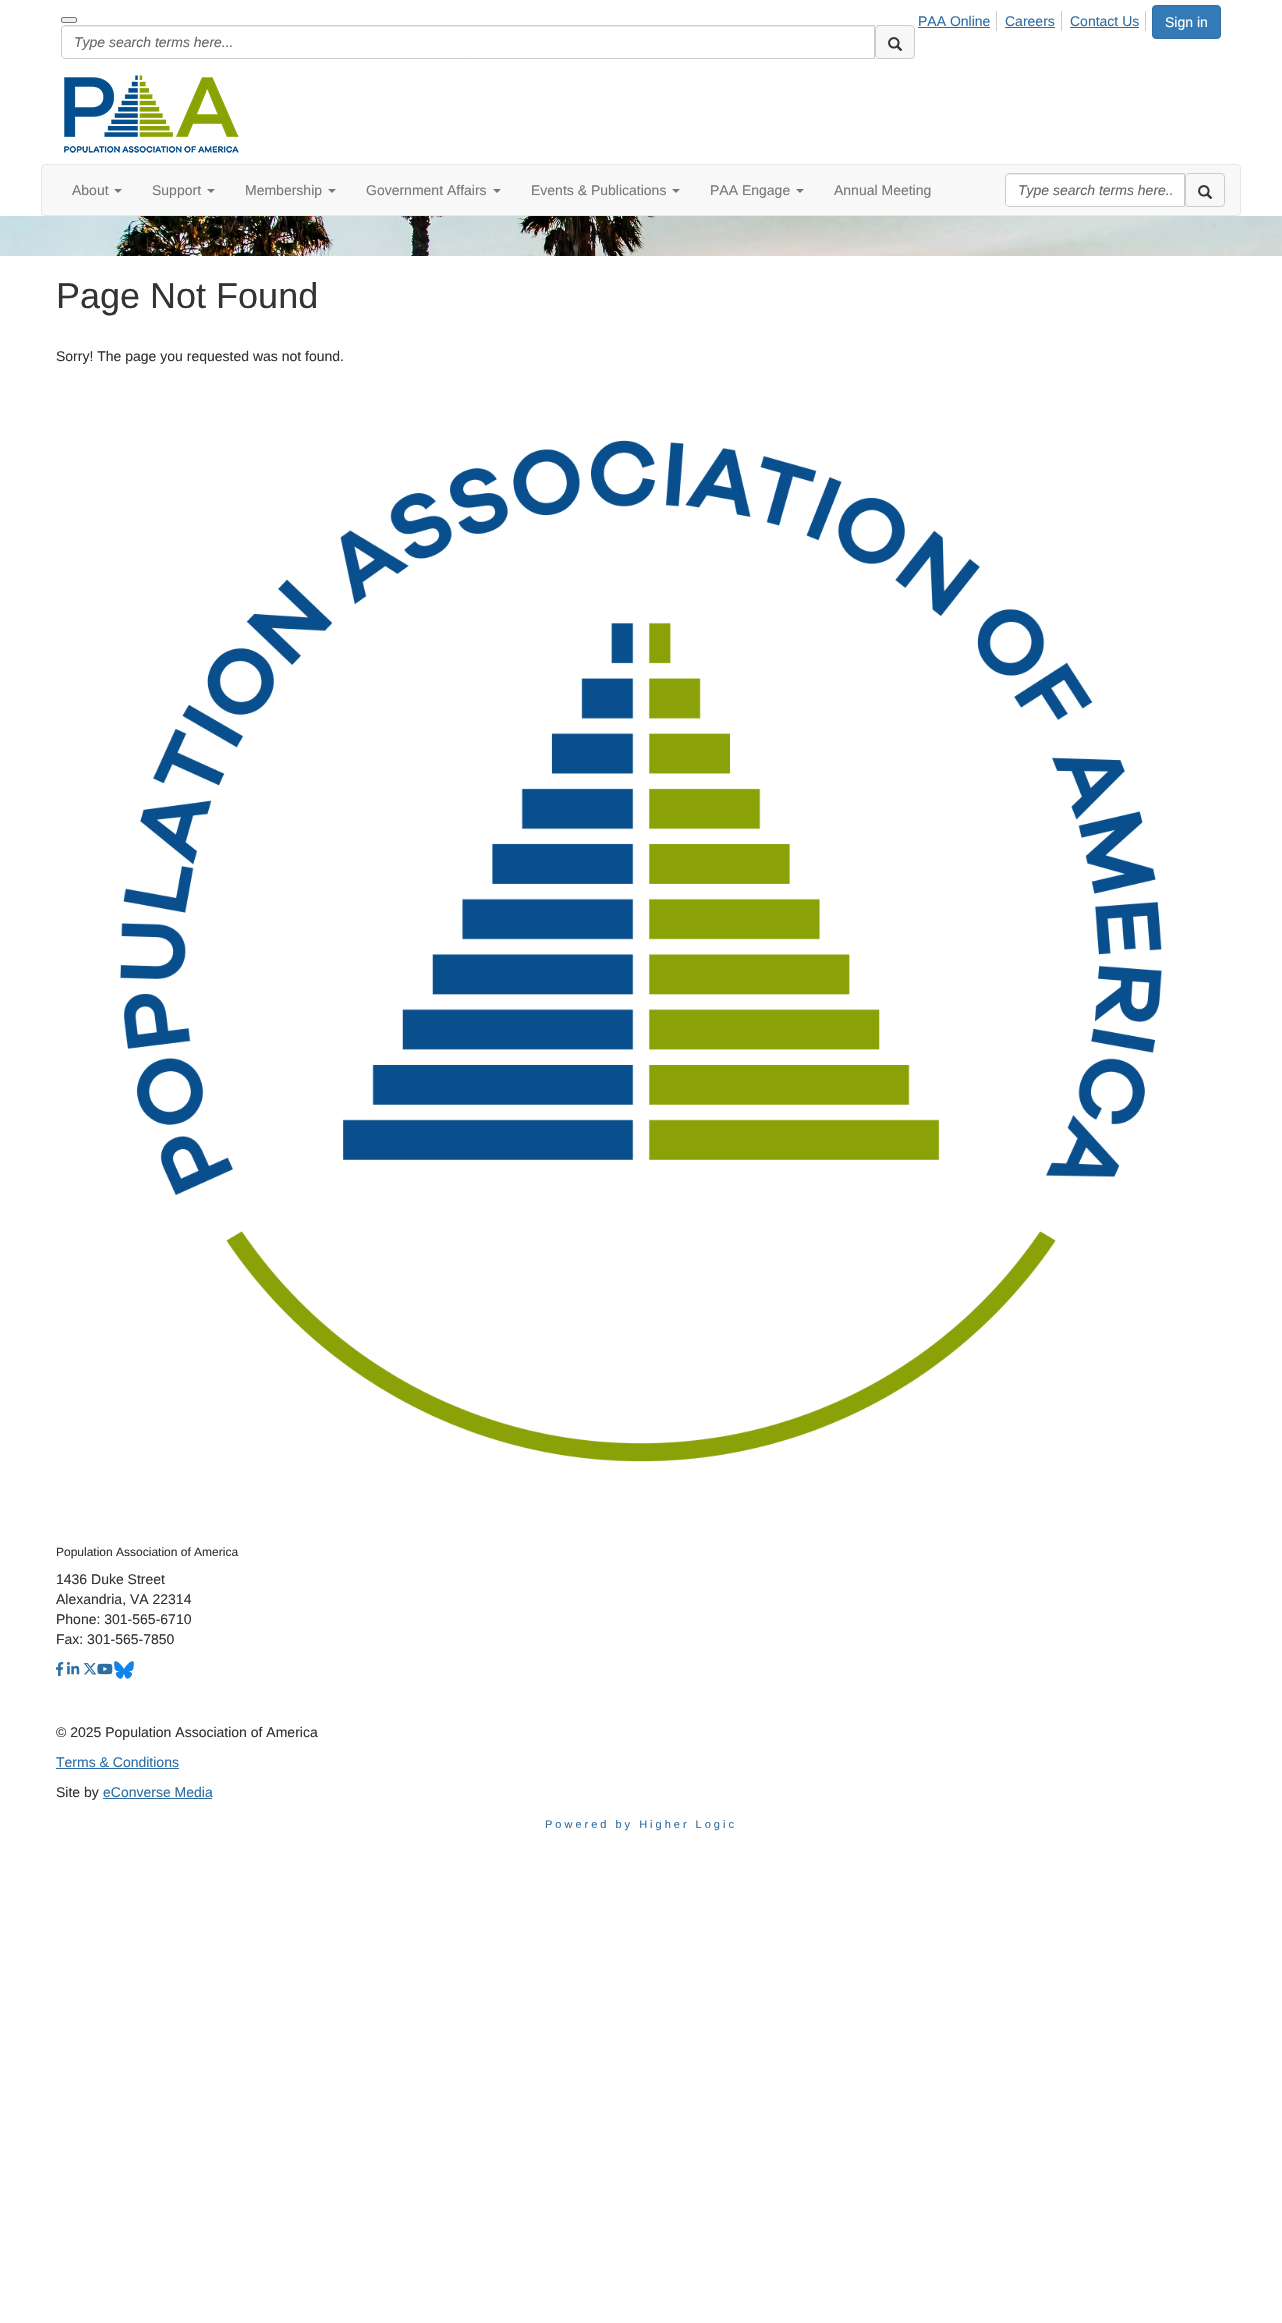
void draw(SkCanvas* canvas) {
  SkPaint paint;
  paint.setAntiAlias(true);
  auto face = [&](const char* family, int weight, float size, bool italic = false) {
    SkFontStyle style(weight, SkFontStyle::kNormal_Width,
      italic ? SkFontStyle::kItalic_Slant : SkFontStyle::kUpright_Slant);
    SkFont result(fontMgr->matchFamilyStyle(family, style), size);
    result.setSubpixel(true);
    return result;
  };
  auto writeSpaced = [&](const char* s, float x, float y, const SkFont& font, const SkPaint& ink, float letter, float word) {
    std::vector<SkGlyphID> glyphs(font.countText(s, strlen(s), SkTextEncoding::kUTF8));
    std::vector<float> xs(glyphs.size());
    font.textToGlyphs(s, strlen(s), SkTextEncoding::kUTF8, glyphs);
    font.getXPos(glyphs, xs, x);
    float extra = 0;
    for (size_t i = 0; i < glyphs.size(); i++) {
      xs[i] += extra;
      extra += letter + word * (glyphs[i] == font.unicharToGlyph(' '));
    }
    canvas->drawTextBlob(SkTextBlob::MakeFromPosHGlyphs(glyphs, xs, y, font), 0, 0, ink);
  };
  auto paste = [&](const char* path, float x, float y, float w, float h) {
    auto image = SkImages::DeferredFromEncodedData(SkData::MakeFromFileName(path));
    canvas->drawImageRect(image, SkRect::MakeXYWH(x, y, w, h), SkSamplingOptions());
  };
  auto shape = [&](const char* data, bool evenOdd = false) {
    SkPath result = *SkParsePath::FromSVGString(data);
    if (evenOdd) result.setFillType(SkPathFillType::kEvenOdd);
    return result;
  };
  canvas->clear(0xffffffff);
  paint.setColor(0xffefefef);
  canvas->drawRoundRect(SkRect::MakeXYWH(61.5f, 17.5f, 15, 5), 1.5f, 1.5f, paint);
  paint.setStroke(true);
  paint.setStrokeWidth(1);
  paint.setColor(0xff767676);
  canvas->drawRoundRect(SkRect::MakeXYWH(61.5f, 17.5f, 15, 5), 1.5f, 1.5f, paint);
  paint.setStroke(false);
  {
    const struct { float x, y, w, h; SkColor color; } items[] = {
      {996, 11, 1, 20, 0xffcccccc},
      {918, 27, 72, 1, 0xff2e6da4},
      {1061, 11, 1, 20, 0xffcccccc},
      {1005, 27, 50, 1, 0xff2e6da4},
      {1145, 11, 1, 20, 0xffcccccc},
      {1070, 27, 69, 1, 0xff2e6da4},
    };
    for (auto [x, y, w, h, color] : items) {
      paint.setColor(color);
      canvas->drawRect(SkRect::MakeXYWH(x, y, w, h), paint);
    }
  }
  paint.setColor(0xff337ab7);
  canvas->drawRoundRect(SkRect::MakeXYWH(1152.5f, 5.5f, 68, 33), 3.5f, 3.5f, paint);
  paint.setStroke(true);
  paint.setColor(0xff2e6da4);
  canvas->drawRoundRect(SkRect::MakeXYWH(1152.5f, 5.5f, 68, 33), 3.5f, 3.5f, paint);
  paint.setStroke(false);
  paint.setColor(0xffececec);
  canvas->drawPath(shape("M65 27H874V26H65C63 26 62 28 62 30C62 28 63 27 65 27Z"), paint);
  paint.setStroke(true);
  paint.setColor(0xffcccccc);
  canvas->drawPath(shape("M65 25.5H874.5V58.5H65C63 58.5 61.5 57 61.5 55V29C61.5 27 63 25.5 65 25.5Z"), paint);
  paint.setStroke(false);
  paint.setColor(0xfff7f7f7);
  canvas->drawRoundRect(SkRect::MakeXYWH(875.5f, 25.5f, 39, 33), 3.5f, 3.5f, paint);
  paint.setStroke(true);
  paint.setColor(0xffcccccc);
  canvas->drawRoundRect(SkRect::MakeXYWH(875.5f, 25.5f, 39, 33), 3.5f, 3.5f, paint);
  paste("img/1.png", 888, 37, 15, 14);
  paste("img/2.png", 64, 75, 175, 78);
  paint.setStroke(false);
  paint.setColor(0xfff8f8f8);
  canvas->drawRoundRect(SkRect::MakeXYWH(41.5f, 164.5f, 1199, 51), 3.5f, 3.5f, paint);
  paint.setStroke(true);
  paint.setColor(0xffe7e7e7);
  canvas->drawRoundRect(SkRect::MakeXYWH(41.5f, 164.5f, 1199, 51), 3.5f, 3.5f, paint);
  paint.setStroke(false);
  paint.setColor(0xff777777);
  canvas->drawPath(shape("M114 189H122L118 193Z"), paint);
  canvas->drawPath(shape("M207 189H215L211 193Z"), paint);
  canvas->drawPath(shape("M328 189H336L332 193Z"), paint);
  canvas->drawPath(shape("M493 189H501L497 193Z"), paint);
  canvas->drawPath(shape("M672 189H680L676 193Z"), paint);
  canvas->drawPath(shape("M796 189H804L800 193Z"), paint);
  paint.setColor(0xffffffff);
  canvas->drawPath(shape("M1009 173H1185V207H1009C1007 207 1005 205 1005 203V177C1005 175 1007 173 1009 173Z"), paint);
  paint.setColor(0xffececec);
  canvas->drawPath(shape("M1009 175H1184V174H1008C1006 175 1006 176 1006 178C1006 176 1007 175 1009 175Z"), paint);
  paint.setStroke(true);
  paint.setColor(0xffcccccc);
  canvas->drawPath(shape("M1009 173.5H1184.5V206.5H1009C1007 206.5 1005.5 205 1005.5 203V177C1005.5 175 1007 173.5 1009 173.5Z"), paint);
  canvas->drawRoundRect(SkRect::MakeXYWH(1185.5f, 173.5f, 39, 33), 3.5f, 3.5f, paint);
  paste("img/3.png", 1198, 185, 15, 14);
  paste("img/4.png", 0, 216, 1282, 40);
  paste("img/5.png", 120, 440, 1042, 1022);
  paste("img/6.png", 55, 1662, 9, 15);
  paste("img/7.png", 67, 1662, 13, 13);
  paste("img/8.png", 83, 1663, 14, 12);
  paste("img/9.png", 97, 1663, 16, 12);
  paste("img/10.png", 114, 1661, 20, 18);
  paint.setStroke(false);
  paint.setColor(0xff2e6da4);
  canvas->drawRect(SkRect::MakeXYWH(56, 1768, 123, 1), paint);
  canvas->drawRect(SkRect::MakeXYWH(103, 1798, 109, 1), paint);
  auto f0 = face("Liberation Sans", 400, 14);
  {
    const struct { const char* s; float x, y; } items[] = {
      {"PAA Online", 918, 26},
      {"Careers", 1005, 26},
      {"Contact Us", 1070, 26},
    };
    for (auto [s, x, y] : items) {
      canvas->drawString(s, x, y, f0, paint);
    }
  }
  paint.setColor(0xffffffff);
  canvas->drawString("Sign in", 1165, 27, f0, paint);
  auto f1 = face("Liberation Sans", 400, 14, true);
  paint.setColor(0xff666666);
  canvas->drawString("Type search terms here...", 74, 47, f1, paint);
  paint.setColor(0xff777777);
  {
    const struct { const char* s; float x, y; } items[] = {
      {"About", 72, 195},
      {"Support", 152, 195},
      {"Membership", 245, 195},
      {"Government Affairs", 366, 195},
      {"Events & Publications", 531, 195},
      {"PAA Engage", 710, 195},
      {"Annual Meeting", 834, 195},
    };
    for (auto [s, x, y] : items) {
      canvas->drawString(s, x, y, f0, paint);
    }
  }
  paint.setColor(0xff666666);
  canvas->drawString("Type search terms here..", 1018, 195, f1, paint);
  auto f2 = face("Liberation Sans", 400, 36);
  paint.setColor(0xff333333);
  canvas->drawString("Page Not Found", 56, 308, f2, paint);
  canvas->drawString("Sorry! The page you requested was not found.", 56, 361, f0, paint);
  auto f3 = face("Liberation Sans", 400, 12);
  canvas->drawString("Population Association of America", 56, 1556, f3, paint);
  {
    const struct { const char* s; float x, y; } items[] = {
      {"1436 Duke Street", 56, 1584},
      {"Alexandria, VA 22314", 56, 1604},
      {"Phone: 301-565-6710", 56, 1624},
      {"Fax: 301-565-7850", 56, 1644},
      {"© 2025 Population Association of America", 56, 1737},
    };
    for (auto [s, x, y] : items) {
      canvas->drawString(s, x, y, f0, paint);
    }
  }
  paint.setColor(0xff2e6da4);
  canvas->drawString("Terms & Conditions", 56, 1767, f0, paint);
  paint.setColor(0xff333333);
  canvas->drawString("Site by", 56, 1797, f0, paint);
  paint.setColor(0xff2e6da4);
  canvas->drawString("eConverse Media", 103, 1797, f0, paint);
  auto f4 = face("Liberation Sans", 400, 11);
  writeSpaced("Powered by Higher Logic", 545, 1828, f4, paint, 3, 0);
}
